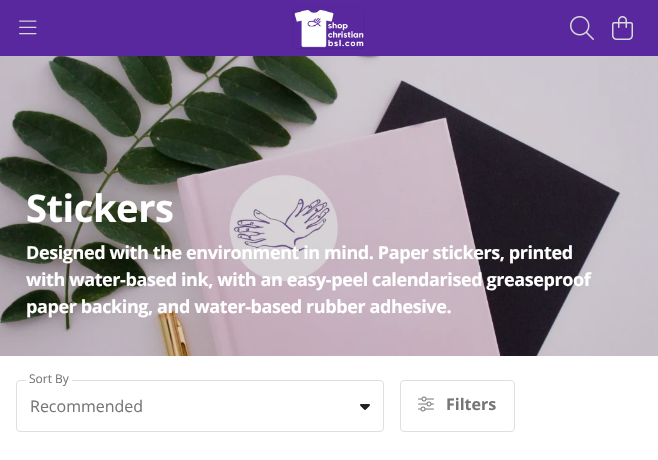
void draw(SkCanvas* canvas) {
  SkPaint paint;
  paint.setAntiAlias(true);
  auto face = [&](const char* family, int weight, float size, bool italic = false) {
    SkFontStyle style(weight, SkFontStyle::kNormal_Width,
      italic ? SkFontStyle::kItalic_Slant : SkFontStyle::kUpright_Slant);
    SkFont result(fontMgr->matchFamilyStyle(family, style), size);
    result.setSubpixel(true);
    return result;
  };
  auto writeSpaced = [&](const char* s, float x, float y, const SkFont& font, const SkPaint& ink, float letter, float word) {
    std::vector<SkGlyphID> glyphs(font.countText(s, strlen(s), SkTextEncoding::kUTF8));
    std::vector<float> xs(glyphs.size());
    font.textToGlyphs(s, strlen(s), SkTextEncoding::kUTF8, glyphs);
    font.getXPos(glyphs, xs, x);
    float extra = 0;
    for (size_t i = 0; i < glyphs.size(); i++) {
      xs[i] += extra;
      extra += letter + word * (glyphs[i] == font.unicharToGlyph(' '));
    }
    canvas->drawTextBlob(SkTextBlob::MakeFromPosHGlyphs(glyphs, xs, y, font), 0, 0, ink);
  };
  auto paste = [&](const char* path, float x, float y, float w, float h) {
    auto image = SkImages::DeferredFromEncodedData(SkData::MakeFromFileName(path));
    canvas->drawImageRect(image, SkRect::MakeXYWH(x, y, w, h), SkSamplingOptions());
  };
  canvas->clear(0xffffffff);
  paint.setColor(0xff59289e);
  canvas->drawRect(SkRect::MakeXYWH(0, 0, 658, 56), paint);
  paste("img/1.png", 19, 20, 18, 15);
  paste("img/2.png", 292, 7, 73, 42);
  paste("img/3.png", 570, 16, 24, 24);
  paste("img/4.png", 612, 16, 21, 24);
  paste("img/5.png", 0, 56, 658, 300);
  paint.setStroke(true);
  paint.setStrokeWidth(1);
  paint.setColor(0xffdfdfdf);
  canvas->drawRoundRect(SkRect::MakeXYWH(16.5f, 380.5f, 367, 51), 3.5f, 3.5f, paint);
  paint.setStroke(false);
  paint.setColor(0xffffffff);
  canvas->drawRect(SkRect::MakeXYWH(26, 380, 46, 1), paint);
  paste("img/6.png", 360, 404, 10, 6);
  paint.setStroke(true);
  paint.setColor(0xffdfdfdf);
  canvas->drawRoundRect(SkRect::MakeXYWH(400.5f, 380.5f, 114, 51), 3.5f, 3.5f, paint);
  paste("img/7.png", 418, 396, 16, 16);
  auto f0 = face("Open Sans", 700, 38);
  paint.setStroke(false);
  paint.setColor(0xffffffff);
  writeSpaced("Stickers", 26, 222, f0, paint, -0.4f, 0);
  auto f1 = face("Open Sans", 700, 18);
  {
    const struct { const char* s; float x, y; } items[] = {
      {"Designed with the environment in mind. Paper stickers, printed", 26, 259},
      {"with water-based ink, with an easy-peel calendarised greaseproof", 26, 286},
      {"paper backing, and water-based rubber adhesive.", 26, 313},
    };
    for (auto [s, x, y] : items) {
      writeSpaced(s, x, y, f1, paint, -0.4f, 0);
    }
  }
  auto f2 = face("Open Sans", 400, 12);
  paint.setColor(0xff767676);
  canvas->drawString("Sort By", 29, 383, f2, paint);
  auto f3 = face("Open Sans", 400, 16);
  canvas->drawString("Recommended", 30, 412, f3, paint);
  auto f4 = face("Open Sans", 700, 16);
  canvas->drawString("Filters", 446, 410, f4, paint);
}
